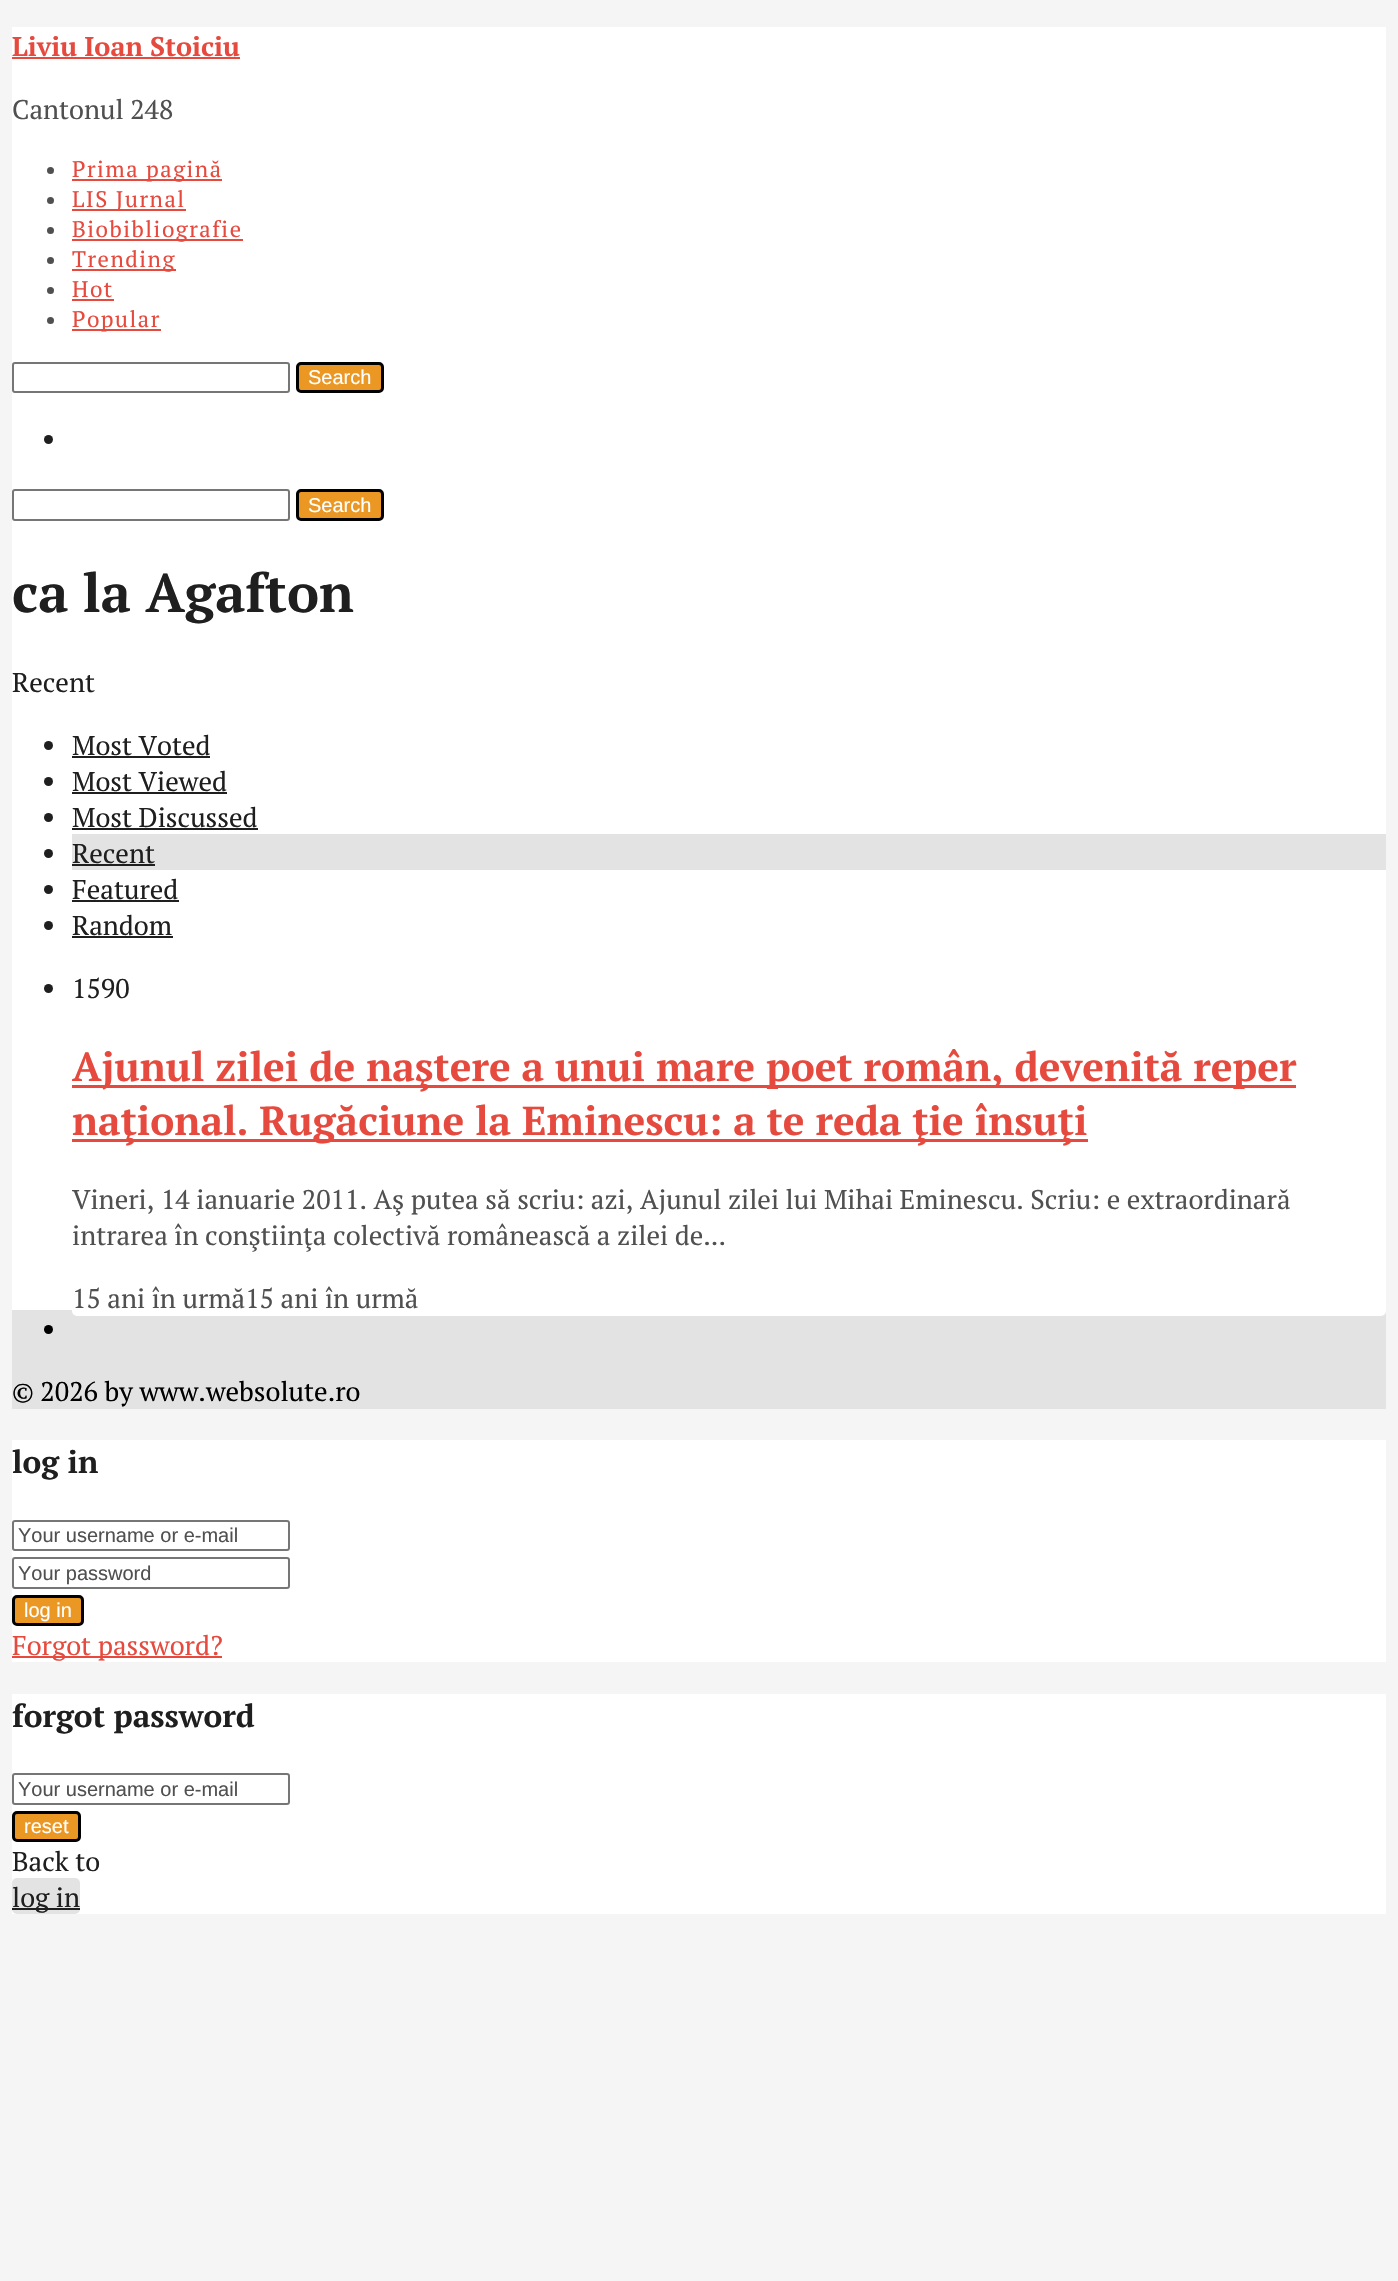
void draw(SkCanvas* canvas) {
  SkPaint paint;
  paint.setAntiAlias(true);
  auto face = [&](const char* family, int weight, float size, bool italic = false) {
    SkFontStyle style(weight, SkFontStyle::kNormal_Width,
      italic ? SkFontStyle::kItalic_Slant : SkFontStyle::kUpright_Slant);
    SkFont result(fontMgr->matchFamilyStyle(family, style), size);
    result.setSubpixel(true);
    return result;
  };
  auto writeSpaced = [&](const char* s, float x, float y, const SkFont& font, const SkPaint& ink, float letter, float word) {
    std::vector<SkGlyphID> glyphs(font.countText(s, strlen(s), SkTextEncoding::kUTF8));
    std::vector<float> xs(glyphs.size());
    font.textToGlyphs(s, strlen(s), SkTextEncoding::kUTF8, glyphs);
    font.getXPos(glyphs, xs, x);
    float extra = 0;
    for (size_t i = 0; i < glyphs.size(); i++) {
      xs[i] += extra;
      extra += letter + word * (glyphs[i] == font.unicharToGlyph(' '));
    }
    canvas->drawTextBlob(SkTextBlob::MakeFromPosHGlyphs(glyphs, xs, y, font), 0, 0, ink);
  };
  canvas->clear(0xfff5f5f5);
  paint.setColor(0xffffffff);
  canvas->drawRect(SkRect::MakeXYWH(12, 27, 1374, 1283), paint);
  paint.setColor(0xffe64a3e);
  canvas->drawRect(SkRect::MakeXYWH(12, 57, 228, 2), paint);
  paint.setColor(0xff505050);
  canvas->drawCircle(50.5f, 170.5f, 3.5f, paint);
  paint.setColor(0xffe64a3e);
  canvas->drawRect(SkRect::MakeXYWH(72, 179, 150, 2), paint);
  paint.setColor(0xff505050);
  canvas->drawCircle(50.5f, 200.5f, 3.5f, paint);
  paint.setColor(0xffe64a3e);
  canvas->drawRect(SkRect::MakeXYWH(72, 209, 114, 2), paint);
  paint.setColor(0xff505050);
  canvas->drawCircle(50.5f, 230.5f, 3.5f, paint);
  paint.setColor(0xffe64a3e);
  canvas->drawRect(SkRect::MakeXYWH(72, 239, 171, 2), paint);
  paint.setColor(0xff505050);
  canvas->drawCircle(50.5f, 260.5f, 3.5f, paint);
  paint.setColor(0xffe64a3e);
  canvas->drawRect(SkRect::MakeXYWH(72, 269, 104, 2), paint);
  paint.setColor(0xff505050);
  canvas->drawCircle(50.5f, 290.5f, 3.5f, paint);
  paint.setColor(0xffe64a3e);
  canvas->drawRect(SkRect::MakeXYWH(72, 299, 42, 2), paint);
  paint.setColor(0xff505050);
  canvas->drawCircle(50.5f, 320.5f, 3.5f, paint);
  paint.setColor(0xffe64a3e);
  canvas->drawRect(SkRect::MakeXYWH(72, 329, 89, 2), paint);
  paint.setStroke(true);
  paint.setStrokeWidth(2);
  paint.setColor(0xff767676);
  canvas->drawRoundRect(SkRect::MakeXYWH(13, 363, 276, 29), 2, 2, paint);
  paint.setStroke(false);
  paint.setColor(0xffea9723);
  canvas->drawRoundRect(SkRect::MakeXYWH(297.5f, 363.5f, 85, 28), 3.5f, 3.5f, paint);
  paint.setStroke(true);
  paint.setStrokeWidth(3);
  paint.setColor(0xff000000);
  canvas->drawRoundRect(SkRect::MakeXYWH(297.5f, 363.5f, 85, 28), 3.5f, 3.5f, paint);
  paint.setStroke(false);
  paint.setColor(0xff1f1f1f);
  canvas->drawCircle(48.5f, 439.5f, 4.5f, paint);
  paint.setStroke(true);
  paint.setStrokeWidth(2);
  paint.setColor(0xff767676);
  canvas->drawRoundRect(SkRect::MakeXYWH(13, 490, 276, 30), 2, 2, paint);
  paint.setStroke(false);
  paint.setColor(0xffea9723);
  canvas->drawRoundRect(SkRect::MakeXYWH(297.5f, 490.5f, 85, 29), 3.5f, 3.5f, paint);
  paint.setStroke(true);
  paint.setStrokeWidth(3);
  paint.setColor(0xff000000);
  canvas->drawRoundRect(SkRect::MakeXYWH(297.5f, 490.5f, 85, 29), 3.5f, 3.5f, paint);
  paint.setStroke(false);
  paint.setColor(0xff1f1f1f);
  canvas->drawCircle(48.5f, 745.5f, 4.5f, paint);
  canvas->drawRect(SkRect::MakeXYWH(72, 756, 138, 2), paint);
  canvas->drawCircle(48.5f, 781.5f, 4.5f, paint);
  canvas->drawRect(SkRect::MakeXYWH(72, 792, 155, 2), paint);
  canvas->drawCircle(48.5f, 817.5f, 4.5f, paint);
  canvas->drawRect(SkRect::MakeXYWH(72, 828, 186, 2), paint);
  paint.setColor(0xffe3e3e3);
  canvas->drawRect(SkRect::MakeXYWH(72, 834, 1314, 36), paint);
  paint.setColor(0xff1f1f1f);
  canvas->drawCircle(48.5f, 853.5f, 4.5f, paint);
  canvas->drawRect(SkRect::MakeXYWH(72, 864, 83, 2), paint);
  canvas->drawCircle(48.5f, 889.5f, 4.5f, paint);
  canvas->drawRect(SkRect::MakeXYWH(72, 900, 107, 2), paint);
  canvas->drawCircle(48.5f, 925.5f, 4.5f, paint);
  canvas->drawRect(SkRect::MakeXYWH(72, 936, 101, 2), paint);
  canvas->drawCircle(48.5f, 988.5f, 4.5f, paint);
  paint.setColor(0xffe3e3e3);
  canvas->drawRect(SkRect::MakeXYWH(12, 1310, 1374, 99), paint);
  paint.setColor(0xffffffff);
  canvas->drawRoundRect(SkRect::MakeXYWH(72, 969, 1314, 347), 5, 5, paint);
  paint.setColor(0xffe64a3e);
  canvas->drawRect(SkRect::MakeXYWH(72, 1085, 1224, 3), paint);
  canvas->drawRect(SkRect::MakeXYWH(72, 1139, 1016, 3), paint);
  paint.setColor(0xff000000);
  canvas->drawCircle(48.5f, 1329.5f, 4.5f, paint);
  paint.setColor(0xffffffff);
  canvas->drawRect(SkRect::MakeXYWH(12, 1440, 1374, 222), paint);
  paint.setStroke(true);
  paint.setStrokeWidth(2);
  paint.setColor(0xff767676);
  canvas->drawRoundRect(SkRect::MakeXYWH(13, 1521, 276, 29), 2, 2, paint);
  canvas->drawRoundRect(SkRect::MakeXYWH(13, 1558, 276, 30), 2, 2, paint);
  paint.setStroke(false);
  paint.setColor(0xffea9723);
  canvas->drawRoundRect(SkRect::MakeXYWH(13.5f, 1596.5f, 69, 28), 3.5f, 3.5f, paint);
  paint.setStroke(true);
  paint.setStrokeWidth(3);
  paint.setColor(0xff000000);
  canvas->drawRoundRect(SkRect::MakeXYWH(13.5f, 1596.5f, 69, 28), 3.5f, 3.5f, paint);
  paint.setStroke(false);
  paint.setColor(0xffe64a3e);
  canvas->drawRect(SkRect::MakeXYWH(12, 1656, 210, 2), paint);
  paint.setColor(0xffffffff);
  canvas->drawRect(SkRect::MakeXYWH(12, 1694, 1374, 220), paint);
  paint.setStroke(true);
  paint.setStrokeWidth(2);
  paint.setColor(0xff767676);
  canvas->drawRoundRect(SkRect::MakeXYWH(13, 1774, 276, 30), 2, 2, paint);
  paint.setStroke(false);
  paint.setColor(0xffea9723);
  canvas->drawRoundRect(SkRect::MakeXYWH(13.5f, 1812.5f, 66, 28), 3.5f, 3.5f, paint);
  paint.setStroke(true);
  paint.setStrokeWidth(3);
  paint.setColor(0xff000000);
  canvas->drawRoundRect(SkRect::MakeXYWH(13.5f, 1812.5f, 66, 28), 3.5f, 3.5f, paint);
  paint.setStroke(false);
  paint.setColor(0xffe3e3e3);
  canvas->drawRoundRect(SkRect::MakeXYWH(12, 1878, 68, 36), 5, 5, paint);
  paint.setColor(0xff1f1f1f);
  canvas->drawRect(SkRect::MakeXYWH(12, 1908, 68, 2), paint);
  auto f0 = face("PT Serif", 700, 27);
  paint.setColor(0xffe64a3e);
  canvas->drawString("Liviu Ioan Stoiciu", 12, 56, f0, paint);
  auto f1 = face("PT Serif", 400, 27);
  paint.setColor(0xff505050);
  canvas->drawString("Cantonul 248", 12, 119, f1, paint);
  auto f2 = face("PT Serif", 400, 22.5f);
  paint.setColor(0xffe64a3e);
  {
    const struct { const char* s; float x, y; } items[] = {
      {"Prima pagină", 72, 177},
      {"LIS Jurnal", 72, 207},
      {"Biobibliografie", 72, 237},
      {"Trending", 72, 267},
      {"Hot", 72, 297},
      {"Popular", 72, 327},
    };
    for (auto [s, x, y] : items) {
      writeSpaced(s, x, y, f2, paint, 1.5f, 0);
    }
  }
  auto f3 = face("Liberation Sans", 400, 20);
  paint.setColor(0xffffffff);
  canvas->drawString("Search", 308, 384, f3, paint);
  canvas->drawString("Search", 308, 512, f3, paint);
  auto f4 = face("PT Serif", 700, 54);
  paint.setColor(0xff1f1f1f);
  canvas->drawString("ca la Agafton", 12, 612, f4, paint);
  {
    const struct { const char* s; float x, y; } items[] = {
      {"Recent", 12, 692},
      {"Most Voted", 72, 755},
      {"Most Viewed", 72, 791},
      {"Most Discussed", 72, 827},
      {"Recent", 72, 863},
      {"Featured", 72, 899},
      {"Random", 72, 935},
      {"1590", 72, 998},
    };
    for (auto [s, x, y] : items) {
      canvas->drawString(s, x, y, f1, paint);
    }
  }
  auto f5 = face("PT Serif", 700, 40.5f);
  paint.setColor(0xffe64a3e);
  canvas->drawString("Ajunul zilei de naştere a unui mare poet român, devenită reper", 72, 1081, f5, paint);
  canvas->drawString("naţional. Rugăciune la Eminescu: a te reda ţie însuţi", 72, 1135, f5, paint);
  paint.setColor(0xff505050);
  {
    const struct { const char* s; float x, y; } items[] = {
      {"Vineri, 14 ianuarie 2011. Aş putea să scriu: azi, Ajunul zilei lui Mihai Eminescu. Scriu: e extraordinară", 72, 1209},
      {"intrarea în conştiinţa colectivă românească a zilei de...", 72, 1245},
      {"15 ani în urmă15 ani în urmă", 72, 1308},
    };
    for (auto [s, x, y] : items) {
      canvas->drawString(s, x, y, f1, paint);
    }
  }
  paint.setColor(0xff000000);
  canvas->drawString("© 2026 by www.websolute.ro", 12, 1401, f1, paint);
  auto f6 = face("PT Serif", 700, 31.5f);
  paint.setColor(0xff1f1f1f);
  canvas->drawString("log in", 12, 1473, f6, paint);
  paint.setColor(0xff505050);
  canvas->drawString("Your username or e-mail", 18, 1542, f3, paint);
  canvas->drawString("Your password", 18, 1580, f3, paint);
  paint.setColor(0xffffffff);
  canvas->drawString("log in", 24, 1617, f3, paint);
  paint.setColor(0xffe64a3e);
  canvas->drawString("Forgot password?", 12, 1655, f1, paint);
  paint.setColor(0xff1f1f1f);
  canvas->drawString("forgot password", 12, 1727, f6, paint);
  paint.setColor(0xff505050);
  canvas->drawString("Your username or e-mail", 18, 1796, f3, paint);
  paint.setColor(0xffffffff);
  canvas->drawString("reset", 24, 1833, f3, paint);
  paint.setColor(0xff1f1f1f);
  canvas->drawString("Back to", 12, 1871, f1, paint);
  canvas->drawString("log in", 12, 1907, f1, paint);
}
